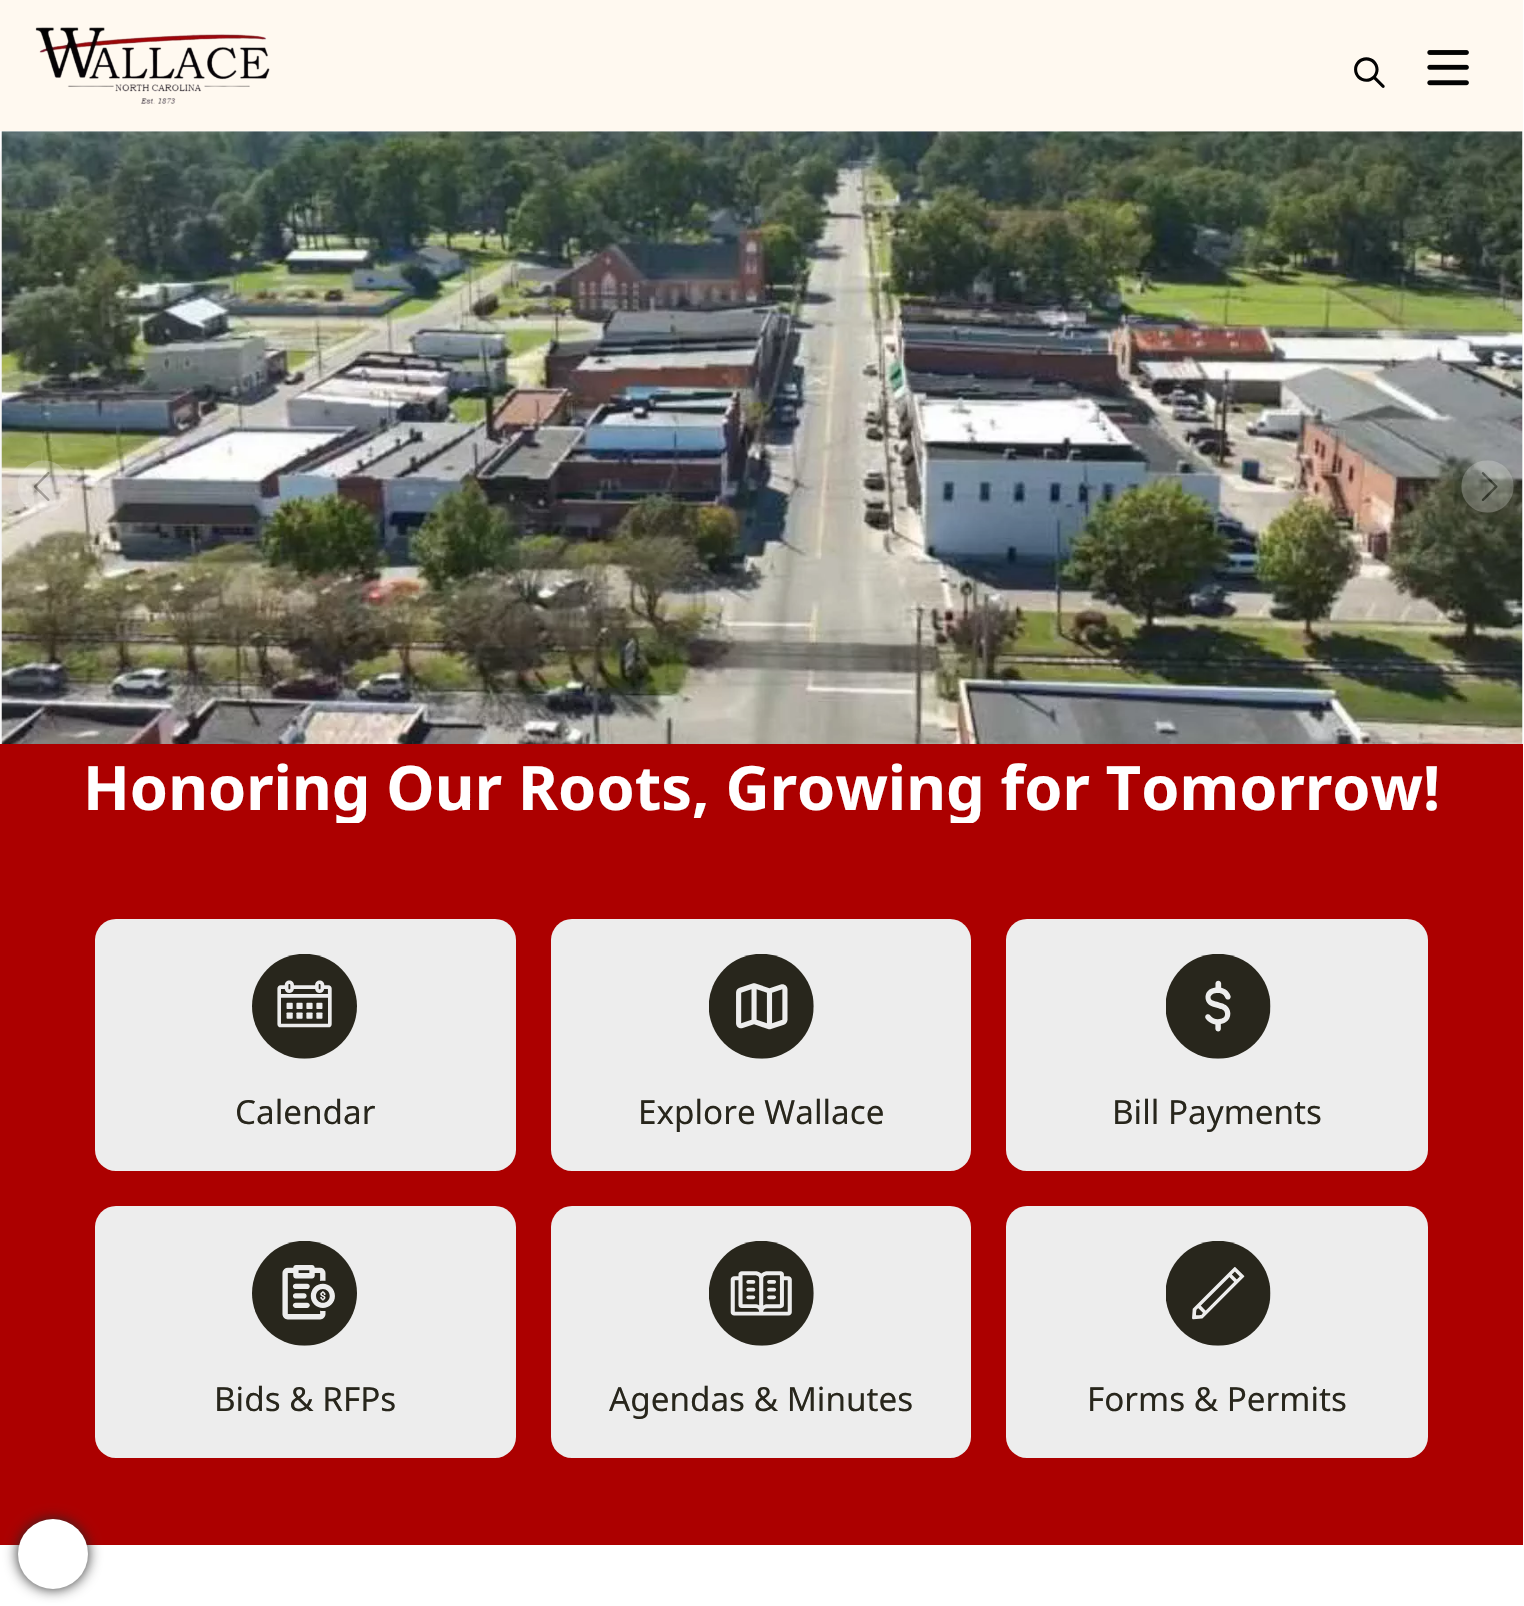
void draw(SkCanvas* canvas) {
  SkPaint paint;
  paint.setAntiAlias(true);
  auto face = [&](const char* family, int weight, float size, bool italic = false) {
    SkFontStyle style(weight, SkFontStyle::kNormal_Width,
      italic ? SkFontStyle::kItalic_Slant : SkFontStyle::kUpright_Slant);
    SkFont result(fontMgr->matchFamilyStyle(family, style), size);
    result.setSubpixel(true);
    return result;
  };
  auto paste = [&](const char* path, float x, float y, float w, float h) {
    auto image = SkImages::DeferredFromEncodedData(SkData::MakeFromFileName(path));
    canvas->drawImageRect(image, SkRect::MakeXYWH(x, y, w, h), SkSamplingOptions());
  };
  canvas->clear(0xffffffff);
  paint.setColor(0xfffff9f0);
  canvas->drawRect(SkRect::MakeXYWH(0, 0, 1523, 131), paint);
  paste("img/1.png", 35, 27, 235, 77);
  paste("img/2.png", 1427, 50, 42, 36);
  paste("img/3.png", 1354, 57, 31, 31);
  paint.setColor(0xfff6f6f6);
  canvas->drawRoundRect(SkRect::MakeXYWH(0, 131, 1523, 700), 26, 26, paint);
  paste("img/4.png", 1, 131, 1522, 613);
  paste("img/5.png", 18, 460, 52, 53);
  paste("img/6.png", 1461, 460, 53, 53);
  paint.setColor(0xffac0000);
  canvas->drawRect(SkRect::MakeXYWH(0, 744, 1523, 801), paint);
  paint.setColor(0xffededed);
  canvas->drawRoundRect(SkRect::MakeXYWH(95, 919, 421, 252), 21, 21, paint);
  paste("img/7.png", 252, 954, 105, 105);
  canvas->drawRoundRect(SkRect::MakeXYWH(551, 919, 420, 252), 21, 21, paint);
  paste("img/8.png", 709, 954, 105, 105);
  canvas->drawRoundRect(SkRect::MakeXYWH(1006, 919, 422, 252), 21, 21, paint);
  paste("img/9.png", 1166, 954, 105, 105);
  canvas->drawRoundRect(SkRect::MakeXYWH(95, 1206, 421, 252), 21, 21, paint);
  paste("img/10.png", 252, 1241, 105, 105);
  canvas->drawRoundRect(SkRect::MakeXYWH(551, 1206, 420, 252), 21, 21, paint);
  paste("img/11.png", 709, 1241, 105, 105);
  canvas->drawRoundRect(SkRect::MakeXYWH(1006, 1206, 422, 252), 21, 21, paint);
  paste("img/12.png", 1166, 1241, 105, 105);
  paint.setColor(0xff272727);
  paint.setMaskFilter(SkMaskFilter::MakeBlur(kNormal_SkBlurStyle, 7));
  canvas->drawRoundRect(SkRect::MakeXYWH(18, 1519, 70, 70), 35, 35, paint);
  paint.setMaskFilter(nullptr);
  paint.setColor(0xffffffff);
  canvas->drawCircle(53, 1554, 35, paint);
  canvas->save();
  canvas->clipRect(SkRect::MakeXYWH(0, 753, 1523, 70));
  auto f0 = face("Noto Sans", 700, 61.25f);
  canvas->drawString("Honoring Our Roots, Growing for Tomorrow!", 83, 810, f0, paint);
  canvas->restore();
  auto f1 = face("Noto Sans", 400, 33.25f);
  paint.setColor(0xff28261c);
  {
    const struct { const char* s; float x, y; } items[] = {
      {"Calendar", 235, 1124},
      {"Explore Wallace", 638, 1124},
      {"Bill Payments", 1112, 1124},
      {"Bids & RFPs", 214, 1411},
      {"Agendas & Minutes", 609, 1411},
      {"Forms & Permits", 1087, 1411},
    };
    for (auto [s, x, y] : items) {
      canvas->drawString(s, x, y, f1, paint);
    }
  }
}
